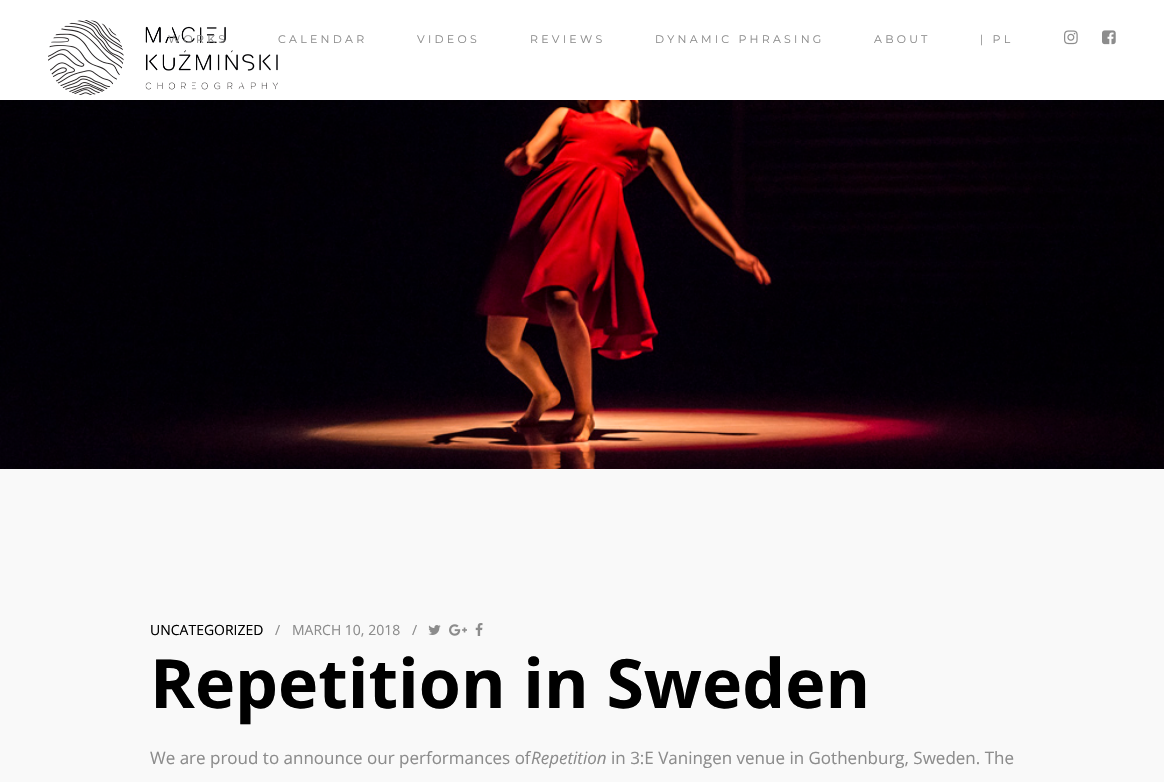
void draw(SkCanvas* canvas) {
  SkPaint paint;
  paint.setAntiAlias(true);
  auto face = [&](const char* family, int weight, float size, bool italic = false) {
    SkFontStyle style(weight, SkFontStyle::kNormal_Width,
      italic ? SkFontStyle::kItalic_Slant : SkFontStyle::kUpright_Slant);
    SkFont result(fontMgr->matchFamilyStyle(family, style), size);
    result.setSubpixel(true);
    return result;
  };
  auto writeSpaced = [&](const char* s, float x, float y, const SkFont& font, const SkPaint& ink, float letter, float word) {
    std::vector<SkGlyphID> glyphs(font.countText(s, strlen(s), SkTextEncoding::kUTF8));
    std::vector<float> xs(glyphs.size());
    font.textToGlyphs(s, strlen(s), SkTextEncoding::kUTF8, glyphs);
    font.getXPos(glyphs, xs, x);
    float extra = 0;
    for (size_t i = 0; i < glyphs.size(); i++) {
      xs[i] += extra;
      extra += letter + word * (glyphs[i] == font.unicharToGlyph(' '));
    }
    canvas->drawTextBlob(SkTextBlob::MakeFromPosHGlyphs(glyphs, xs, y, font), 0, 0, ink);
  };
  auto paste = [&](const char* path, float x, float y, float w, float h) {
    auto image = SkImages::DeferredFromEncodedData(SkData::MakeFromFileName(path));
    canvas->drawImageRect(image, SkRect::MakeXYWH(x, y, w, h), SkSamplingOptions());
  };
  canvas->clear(0xfff9f9f9);
  paint.setColor(0xffffffff);
  canvas->drawRect(SkRect::MakeXYWH(0, 0, 1164, 100), paint);
  paste("img/1.png", 48, 20, 230, 75);
  paste("img/2.png", 1064, 30, 14, 15);
  paste("img/3.png", 1102, 30, 14, 15);
  paste("img/4.png", 0, 100, 1164, 369);
  paste("img/5.png", 428, 625, 13, 10);
  paste("img/6.png", 449, 624, 18, 12);
  paste("img/7.png", 475, 623, 8, 13);
  auto f0 = face("Montserrat", 400, 11);
  paint.setColor(0xff8c8c8c);
  {
    const struct { const char* s; float x, y; } items[] = {
      {"WORKS", 168, 43},
      {"CALENDAR", 278, 43},
      {"VIDEOS", 417, 43},
      {"REVIEWS", 530, 43},
      {"DYNAMIC PHRASING", 655, 43},
      {"ABOUT", 874, 43},
      {"| PL", 980, 43},
    };
    for (auto [s, x, y] : items) {
      writeSpaced(s, x, y, f0, paint, 3.25f, 0);
    }
  }
  auto f1 = face("Open Sans", 400, 14);
  paint.setColor(0xff000000);
  canvas->drawString("UNCATEGORIZED", 150, 635, f1, paint);
  paint.setColor(0xff8c8c8c);
  {
    const struct { const char* s; float x, y; } items[] = {
      {"/", 275, 635},
      {"MARCH 10, 2018", 292, 635},
      {"/", 412, 635},
    };
    for (auto [s, x, y] : items) {
      canvas->drawString(s, x, y, f1, paint);
    }
  }
  auto f2 = face("Open Sans", 700, 68);
  paint.setColor(0xff000000);
  canvas->drawString("Repetition in Sweden", 150, 708, f2, paint);
  auto f3 = face("Open Sans", 400, 17);
  paint.setColor(0xff8c8c8c);
  canvas->drawString("We are proud to announce our performances of", 150, 764, f3, paint);
  auto f4 = face("Open Sans", 400, 17, true);
  canvas->drawString("Repetition", 531, 764, f4, paint);
  canvas->drawString("in 3:E Vaningen venue in Gothenburg, Sweden. The", 611, 764, f3, paint);
}
